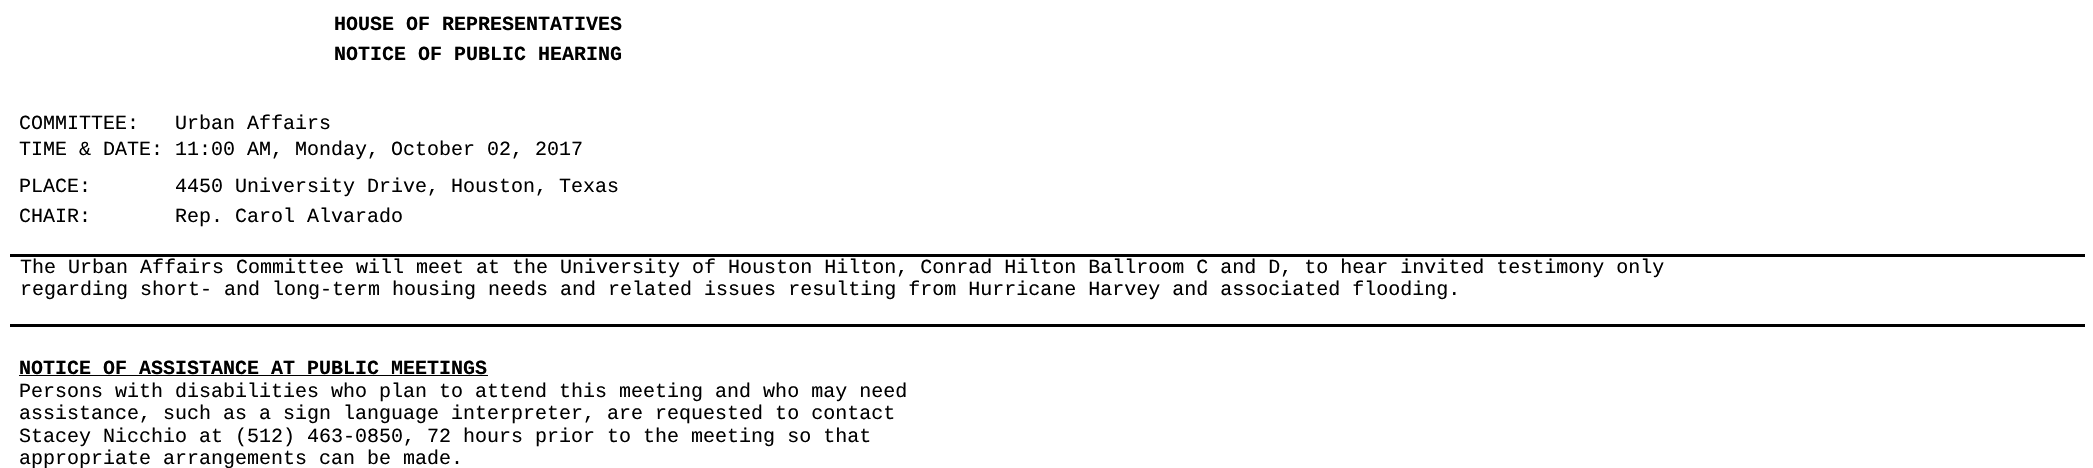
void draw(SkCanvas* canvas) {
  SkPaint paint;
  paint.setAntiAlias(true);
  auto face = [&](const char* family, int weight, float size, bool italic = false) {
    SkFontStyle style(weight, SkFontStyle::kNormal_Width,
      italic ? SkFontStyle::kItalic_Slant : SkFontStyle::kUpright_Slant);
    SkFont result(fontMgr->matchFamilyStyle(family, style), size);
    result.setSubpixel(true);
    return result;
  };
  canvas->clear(0xffffffff);
  {
    const struct { float x, y, w, h; SkColor color; } items[] = {
      {10, 254, 2075, 3, 0xff000000},
      {10, 324, 2075, 3, 0xff000000},
      {19, 375, 469, 1, 0xff000000},
    };
    for (auto [x, y, w, h, color] : items) {
      paint.setColor(color);
      canvas->drawRect(SkRect::MakeXYWH(x, y, w, h), paint);
    }
  }
  auto f0 = face("Liberation Mono", 700, 20);
  canvas->drawString("HOUSE OF REPRESENTATIVES", 334, 30, f0, paint);
  canvas->drawString("NOTICE OF PUBLIC HEARING", 334, 60, f0, paint);
  auto f1 = face("Liberation Mono", 400, 20);
  {
    const struct { const char* s; float x, y; } items[] = {
      {"COMMITTEE:   Urban Affairs", 19, 129},
      {"TIME & DATE: 11:00 AM, Monday, October 02, 2017", 19, 155},
      {"PLACE:       4450 University Drive, Houston, Texas", 19, 192},
      {"CHAIR:       Rep. Carol Alvarado", 19, 222},
      {"The Urban Affairs Committee will meet at the University of Houston Hilton, Conrad Hilton Ballroom C and D, to hear invited testimony only", 20, 273},
      {"regarding short- and long-term housing needs and related issues resulting from Hurricane Harvey and associated flooding.", 20, 295},
    };
    for (auto [s, x, y] : items) {
      canvas->drawString(s, x, y, f1, paint);
    }
  }
  canvas->drawString("NOTICE OF ASSISTANCE AT PUBLIC MEETINGS", 19, 374, f0, paint);
  {
    const struct { const char* s; float x, y; } items[] = {
      {"Persons with disabilities who plan to attend this meeting and who may need", 19, 397},
      {"assistance, such as a sign language interpreter, are requested to contact", 19, 419},
      {"Stacey Nicchio at (512) 463-0850, 72 hours prior to the meeting so that", 19, 442},
      {"appropriate arrangements can be made.", 19, 464},
    };
    for (auto [s, x, y] : items) {
      canvas->drawString(s, x, y, f1, paint);
    }
  }
}
